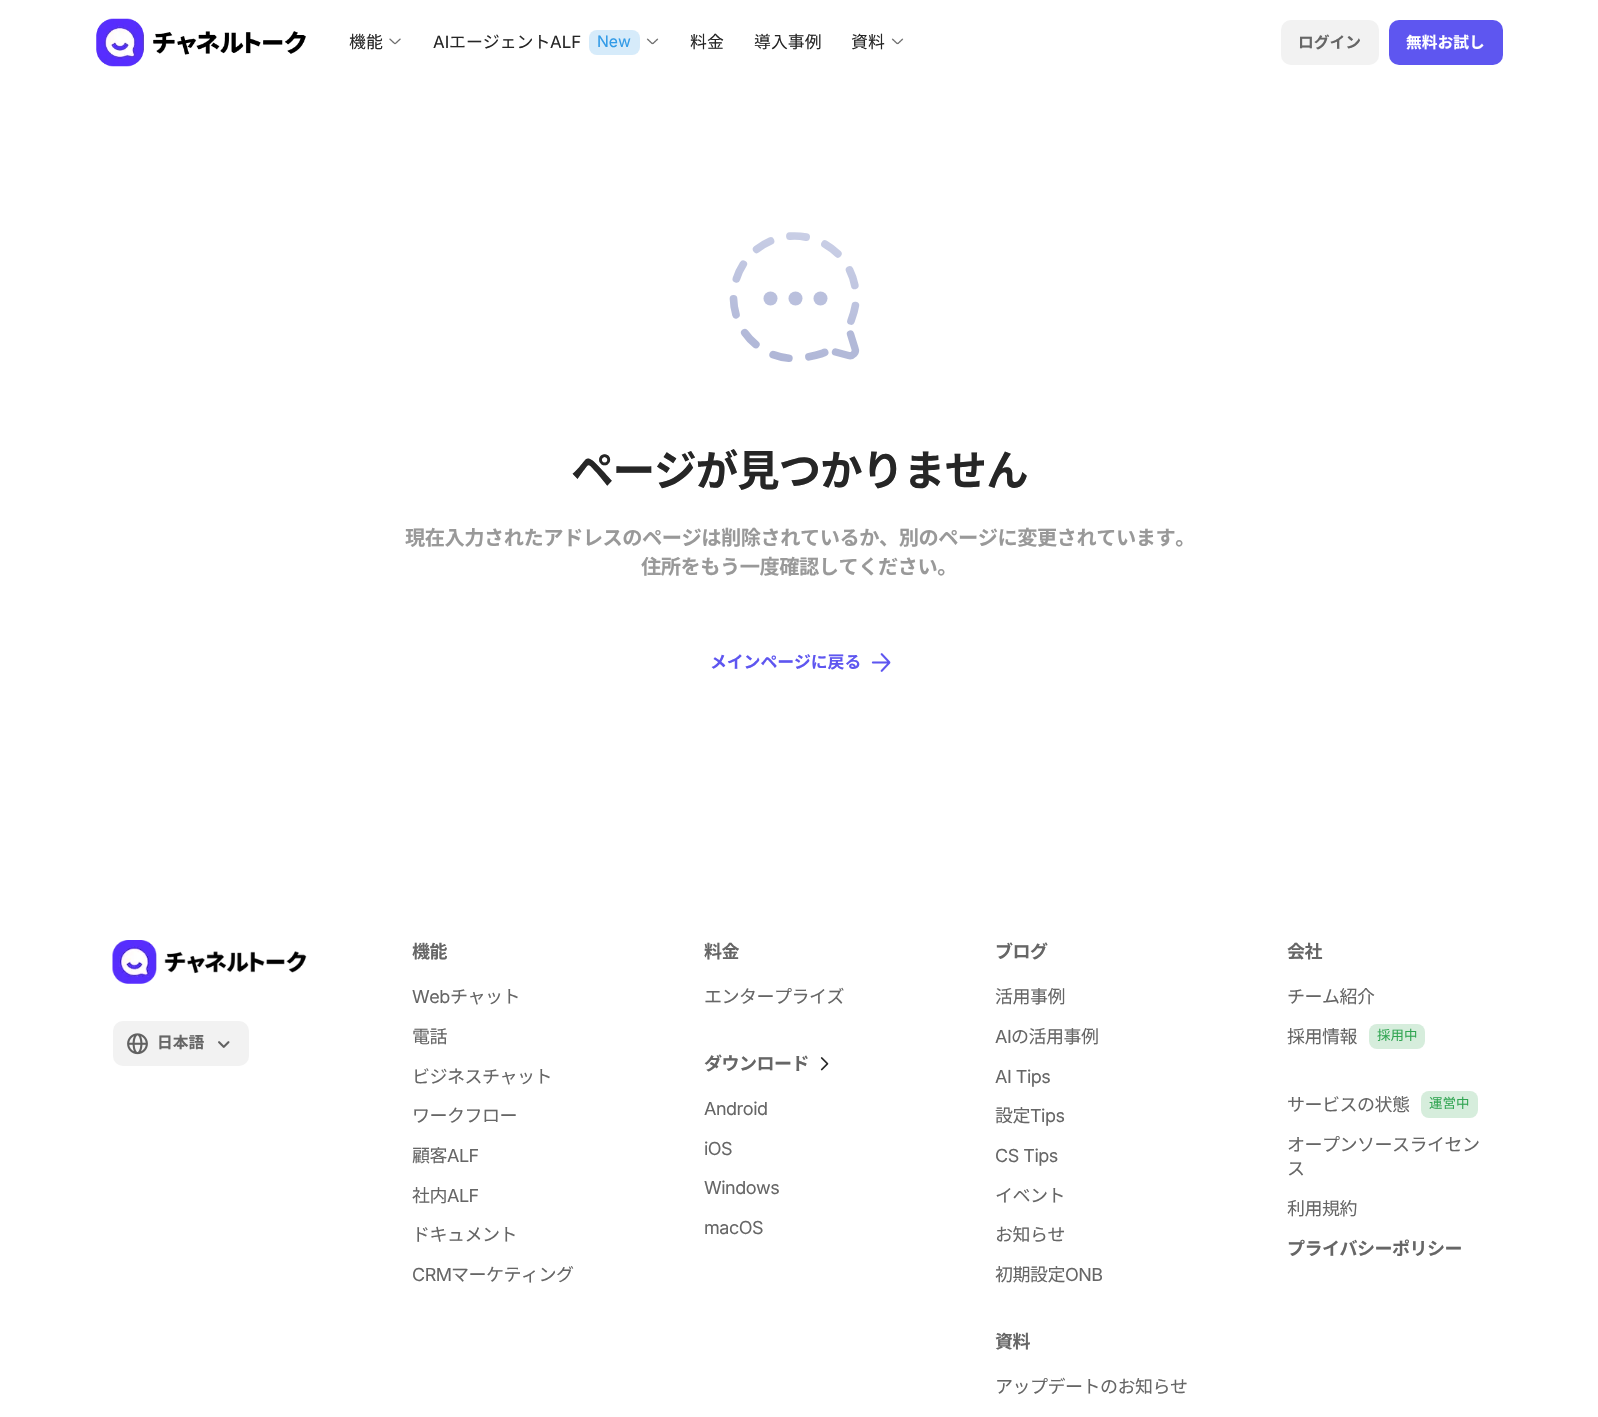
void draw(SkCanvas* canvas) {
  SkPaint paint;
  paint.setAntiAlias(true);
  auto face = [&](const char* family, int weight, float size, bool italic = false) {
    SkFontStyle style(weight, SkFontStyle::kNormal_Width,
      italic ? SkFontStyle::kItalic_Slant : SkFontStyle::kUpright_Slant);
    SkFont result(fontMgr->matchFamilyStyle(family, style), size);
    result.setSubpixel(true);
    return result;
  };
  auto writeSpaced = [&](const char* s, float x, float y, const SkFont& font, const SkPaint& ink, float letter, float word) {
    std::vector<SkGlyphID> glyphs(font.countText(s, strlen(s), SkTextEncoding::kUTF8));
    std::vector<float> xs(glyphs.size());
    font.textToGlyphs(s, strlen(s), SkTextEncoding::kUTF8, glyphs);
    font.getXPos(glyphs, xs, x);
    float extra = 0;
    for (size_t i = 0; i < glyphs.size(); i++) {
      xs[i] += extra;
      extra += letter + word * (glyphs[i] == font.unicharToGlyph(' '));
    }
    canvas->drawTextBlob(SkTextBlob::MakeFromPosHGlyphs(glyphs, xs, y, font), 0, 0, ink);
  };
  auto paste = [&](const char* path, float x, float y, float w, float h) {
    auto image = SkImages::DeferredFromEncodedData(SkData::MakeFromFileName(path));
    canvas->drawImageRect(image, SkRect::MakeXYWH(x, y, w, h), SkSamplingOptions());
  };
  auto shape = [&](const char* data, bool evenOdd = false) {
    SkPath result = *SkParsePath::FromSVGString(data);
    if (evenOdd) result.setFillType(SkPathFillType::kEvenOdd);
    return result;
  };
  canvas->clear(0xffffffff);
  paste("img/1.png", 96, 18, 210, 49);
  paste("img/2.png", 389, 38, 12, 7);
  paste("img/3.png", 646, 38, 13, 7);
  paint.setColor(0xffd6ebfa);
  canvas->drawRoundRect(SkRect::MakeXYWH(589, 30, 51, 25), 8, 8, paint);
  paste("img/4.png", 891, 38, 13, 7);
  paint.setColor(0xfff2f2f2);
  canvas->drawRoundRect(SkRect::MakeXYWH(1281, 20, 98, 45), 10, 10, paint);
  paint.setColor(0xff5e56f0);
  canvas->drawRoundRect(SkRect::MakeXYWH(1389, 20, 114, 45), 10, 10, paint);
  paint.setStroke(true);
  paint.setStrokeWidth(7.7f);
  paint.setStrokeCap(SkPaint::kRound_Cap);
  {
    const SkColor colors[] = {0xffcdd2e8, 0xffaeb5d6};
    const float stops[] = {0, 1};
    const SkPoint ends[] = {{911, 236}, {877, 388}};
    paint.setShader(SkGradientShader::MakeLinear(ends, colors, stops, 2, SkTileMode::kClamp));
    paint.setAlpha(255);
  }
  paint.setPathEffect(SkDashPathEffect::Make({{16.19f, 20.12f}}, 0));
  canvas->drawPath(shape("M851 321C854 313 856 306 856 297.5C856 263.5 828.5 236 794.5 236C761 236 733.5 263.5 733.5 297.5C733.5 331 761 358.5 794.5 358.5C802 358.5 814 356 822 353.5M822 353.5C825.5 352 825.5 352 822 353.5Z"), paint);
  paint.setPathEffect(nullptr);
  paint.setStroke(false);
  paint.setShader(nullptr);
  paint.setColor(0xffbac0dd);
  canvas->drawCircle(770.5f, 298.5f, 7, paint);
  canvas->drawCircle(795.5f, 298.5f, 7, paint);
  canvas->drawCircle(820.5f, 298.5f, 7, paint);
  paint.setStroke(true);
  paint.setStrokeWidth(7.4f);
  paint.setColor(0xffb2b9d8);
  canvas->drawPath(shape("M850.5 334L855 348.5C856.5 352.5 853 356.5 848.5 355.5L835.5 352"), paint);
  paste("img/5.png", 871, 653, 20, 19);
  paste("img/6.png", 112, 940, 195, 44);
  paint.setStroke(false);
  paint.setColor(0xfff2f2f2);
  canvas->drawRoundRect(SkRect::MakeXYWH(113, 1021, 136, 45), 10, 10, paint);
  paste("img/7.png", 127, 1033, 21, 22);
  paste("img/8.png", 218, 1041, 12, 7);
  paste("img/9.png", 820, 1057, 9, 14);
  paint.setColor(0xffd6eddc);
  canvas->drawRoundRect(SkRect::MakeXYWH(1369, 1024, 56, 25), 8, 8, paint);
  canvas->drawRoundRect(SkRect::MakeXYWH(1421, 1091, 57, 27), 8, 8, paint);
  auto f0 = face("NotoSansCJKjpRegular", 400, 16.9f);
  paint.setColor(0xff262626);
  canvas->drawString("機能", 349, 48, f0, paint);
  auto f1 = face("Inter", 400, 16.9f);
  canvas->drawString("AI", 433, 48, f1, paint);
  canvas->drawString("エージェント", 449, 48, f0, paint);
  canvas->drawString("ALF", 550, 48, f1, paint);
  auto f2 = face("Inter", 400, 15.75f);
  paint.setColor(0xff329be7);
  canvas->drawString("New", 597, 47, f2, paint);
  paint.setColor(0xff262626);
  {
    const struct { const char* s; float x, y; } items[] = {
      {"料金", 690, 48},
      {"導入事例", 754, 48},
      {"資料", 851, 48},
    };
    for (auto [s, x, y] : items) {
      canvas->drawString(s, x, y, f0, paint);
    }
  }
  auto f3 = face("Noto Sans CJK JP", 700, 15.75f);
  paint.setColor(0xff666666);
  canvas->drawString("ログイン", 1298, 48, f3, paint);
  paint.setColor(0xffffffff);
  canvas->drawString("無料お試し", 1406, 48, f3, paint);
  auto f4 = face("Noto Sans CJK JP", 700, 42.75f);
  paint.setColor(0xff262626);
  writeSpaced("ページが見つかりません", 571, 486, f4, paint, -1.25f, 0);
  auto f5 = face("Noto Sans CJK JP", 700, 20.25f);
  paint.setColor(0xff999999);
  writeSpaced("現在入力されたアドレスのページは削除されているか、別のページに変更されています。", 405, 545, f5, paint, -0.5f, 0);
  writeSpaced("住所をもう一度確認してください。", 641, 574, f5, paint, -0.5f, 0);
  auto f6 = face("Noto Sans CJK JP", 700, 16.9f);
  paint.setColor(0xff5e56f0);
  writeSpaced("メインページに戻る", 710, 668, f6, paint, -0.1f, 0);
  paint.setColor(0xff666666);
  canvas->drawString("日本語", 157, 1048, f3, paint);
  auto f7 = face("Noto Sans CJK JP", 700, 18);
  writeSpaced("機能", 412, 958, f7, paint, -0.5f, 0);
  auto f8 = face("Inter", 400, 18);
  writeSpaced("Web", 412, 1003, f8, paint, -0.5f, 0);
  auto f9 = face("NotoSansCJKjpRegular", 400, 18);
  {
    const struct { const char* s; float x, y; } items[] = {
      {"チャット", 450, 1003},
      {"電話", 412, 1043},
      {"ビジネスチャット", 412, 1083},
      {"ワークフロー", 412, 1122},
      {"顧客", 412, 1162},
    };
    for (auto [s, x, y] : items) {
      writeSpaced(s, x, y, f9, paint, -0.5f, 0);
    }
  }
  writeSpaced("ALF", 447, 1162, f8, paint, -0.5f, 0);
  writeSpaced("社内", 412, 1202, f9, paint, -0.5f, 0);
  writeSpaced("ALF", 447, 1202, f8, paint, -0.5f, 0);
  writeSpaced("ドキュメント", 412, 1241, f9, paint, -0.5f, 0);
  writeSpaced("CRM", 412, 1281, f8, paint, -0.5f, 0);
  writeSpaced("マーケティング", 451, 1281, f9, paint, -0.5f, 0);
  writeSpaced("料金", 704, 958, f7, paint, -0.5f, 0);
  writeSpaced("エンタープライズ", 704, 1003, f9, paint, -0.5f, 0);
  writeSpaced("ダウンロード", 704, 1070, f7, paint, -0.5f, 0);
  {
    const struct { const char* s; float x, y; } items[] = {
      {"Android", 704, 1115},
      {"iOS", 704, 1155},
      {"Windows", 704, 1194},
      {"macOS", 704, 1234},
    };
    for (auto [s, x, y] : items) {
      writeSpaced(s, x, y, f8, paint, -0.5f, 0);
    }
  }
  writeSpaced("ブログ", 995, 958, f7, paint, -0.5f, 0);
  writeSpaced("活用事例", 995, 1003, f9, paint, -0.5f, 0);
  writeSpaced("AI", 995, 1043, f8, paint, -0.5f, 0);
  writeSpaced("の活用事例", 1011, 1043, f9, paint, -0.5f, 0);
  writeSpaced("AI Tips", 995, 1083, f8, paint, -0.5f, 0);
  writeSpaced("設定", 995, 1122, f9, paint, -0.5f, 0);
  writeSpaced("Tips", 1030, 1122, f8, paint, -0.5f, 0);
  writeSpaced("CS Tips", 995, 1162, f8, paint, -0.5f, 0);
  {
    const struct { const char* s; float x, y; } items[] = {
      {"イベント", 995, 1202},
      {"お知らせ", 995, 1241},
      {"初期設定", 995, 1281},
    };
    for (auto [s, x, y] : items) {
      writeSpaced(s, x, y, f9, paint, -0.5f, 0);
    }
  }
  writeSpaced("ONB", 1065, 1281, f8, paint, -0.5f, 0);
  writeSpaced("資料", 995, 1348, f7, paint, -0.5f, 0);
  writeSpaced("アップデートのお知らせ", 995, 1393, f9, paint, -0.5f, 0);
  writeSpaced("会社", 1287, 958, f7, paint, -0.5f, 0);
  writeSpaced("チーム紹介", 1287, 1003, f9, paint, -0.5f, 0);
  writeSpaced("採用情報", 1287, 1043, f9, paint, -0.5f, 0);
  auto f10 = face("NotoSansCJKjpRegular", 400, 13.5f);
  paint.setColor(0xff31a552);
  canvas->drawString("採用中", 1377, 1040, f10, paint);
  paint.setColor(0xff666666);
  writeSpaced("サービスの状態", 1287, 1111, f9, paint, -0.5f, 0);
  paint.setColor(0xff31a552);
  canvas->drawString("運営中", 1429, 1108, f10, paint);
  paint.setColor(0xff666666);
  {
    const struct { const char* s; float x, y; } items[] = {
      {"オープンソースライセン", 1287, 1151},
      {"ス", 1287, 1175},
      {"利用規約", 1287, 1215},
    };
    for (auto [s, x, y] : items) {
      writeSpaced(s, x, y, f9, paint, -0.5f, 0);
    }
  }
  writeSpaced("プライバシーポリシー", 1287, 1255, f7, paint, -0.5f, 0);
}
